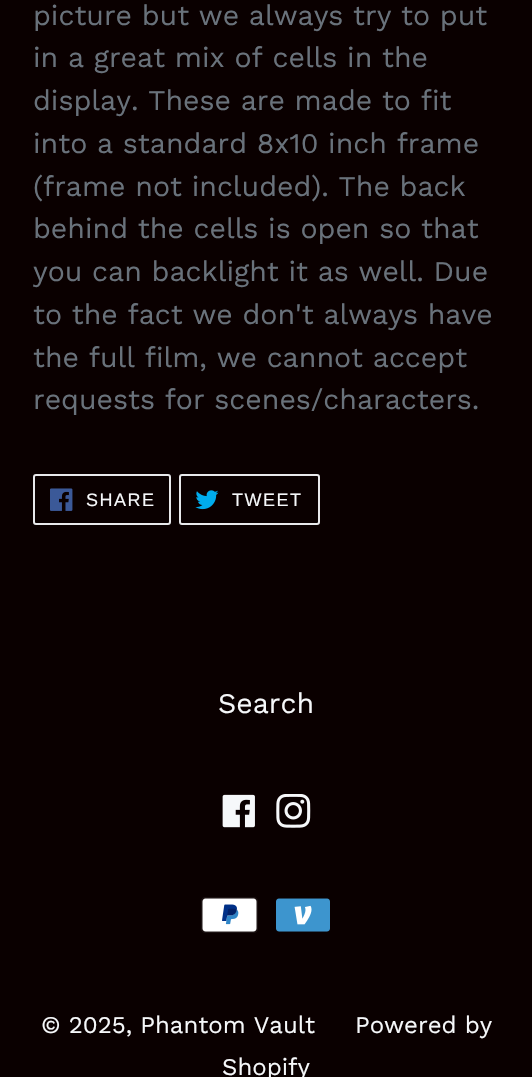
void draw(SkCanvas* canvas) {
  SkPaint paint;
  paint.setAntiAlias(true);
  auto face = [&](const char* family, int weight, float size, bool italic = false) {
    SkFontStyle style(weight, SkFontStyle::kNormal_Width,
      italic ? SkFontStyle::kItalic_Slant : SkFontStyle::kUpright_Slant);
    SkFont result(fontMgr->matchFamilyStyle(family, style), size);
    result.setSubpixel(true);
    return result;
  };
  auto writeSpaced = [&](const char* s, float x, float y, const SkFont& font, const SkPaint& ink, float letter, float word) {
    std::vector<SkGlyphID> glyphs(font.countText(s, strlen(s), SkTextEncoding::kUTF8));
    std::vector<float> xs(glyphs.size());
    font.textToGlyphs(s, strlen(s), SkTextEncoding::kUTF8, glyphs);
    font.getXPos(glyphs, xs, x);
    float extra = 0;
    for (size_t i = 0; i < glyphs.size(); i++) {
      xs[i] += extra;
      extra += letter + word * (glyphs[i] == font.unicharToGlyph(' '));
    }
    canvas->drawTextBlob(SkTextBlob::MakeFromPosHGlyphs(glyphs, xs, y, font), 0, 0, ink);
  };
  auto paste = [&](const char* path, float x, float y, float w, float h) {
    auto image = SkImages::DeferredFromEncodedData(SkData::MakeFromFileName(path));
    canvas->drawImageRect(image, SkRect::MakeXYWH(x, y, w, h), SkSamplingOptions());
  };
  canvas->clear(0xff0a0000);
  paint.setStroke(true);
  paint.setStrokeWidth(2);
  paint.setColor(0xffe8e9eb);
  canvas->drawRoundRect(SkRect::MakeXYWH(34, 475, 136, 49), 2, 2, paint);
  paste("img/1.png", 50, 488, 23, 23);
  canvas->drawRoundRect(SkRect::MakeXYWH(180, 475, 139, 49), 2, 2, paint);
  paste("img/2.png", 195, 490, 24, 20);
  paste("img/3.png", 222, 794, 33, 34);
  paste("img/4.png", 276, 794, 35, 34);
  paste("img/5.png", 201, 897, 57, 36);
  paste("img/6.png", 276, 898, 54, 34);
  auto f0 = face("Work Sans", 400, 28.5f);
  paint.setStroke(false);
  paint.setColor(0xff69727b);
  {
    const struct { const char* s; float x, y; } items[] = {
      {"picture but we always try to put", 33, 25},
      {"in a great mix of cells in the", 33, 67},
      {"display. These are made to fit", 33, 110},
      {"into a standard 8x10 inch frame", 33, 153},
      {"(frame not included). The back", 33, 196},
      {"behind the cells is open so that", 33, 238},
      {"you can backlight it as well. Due", 33, 281},
      {"to the fact we don't always have", 33, 324},
      {"the full film, we cannot accept", 33, 367},
      {"requests for scenes/characters.", 33, 409},
    };
    for (auto [s, x, y] : items) {
      canvas->drawString(s, x, y, f0, paint);
    }
  }
  auto f1 = face("Liberation Sans", 400, 18);
  paint.setColor(0xfff6f8fa);
  writeSpaced("SHARE", 86, 506, f1, paint, 1.5f, 0);
  writeSpaced("TWEET", 232, 506, f1, paint, 1.5f, 0);
  canvas->drawString("Search", 218, 713, f0, paint);
  auto f2 = face("Work Sans", 400, 24);
  {
    const struct { const char* s; float x, y; } items[] = {
      {"© 2025, Phantom Vault", 41, 1033},
      {"Powered by", 355, 1033},
      {"Shopify", 222, 1075},
    };
    for (auto [s, x, y] : items) {
      canvas->drawString(s, x, y, f2, paint);
    }
  }
}
